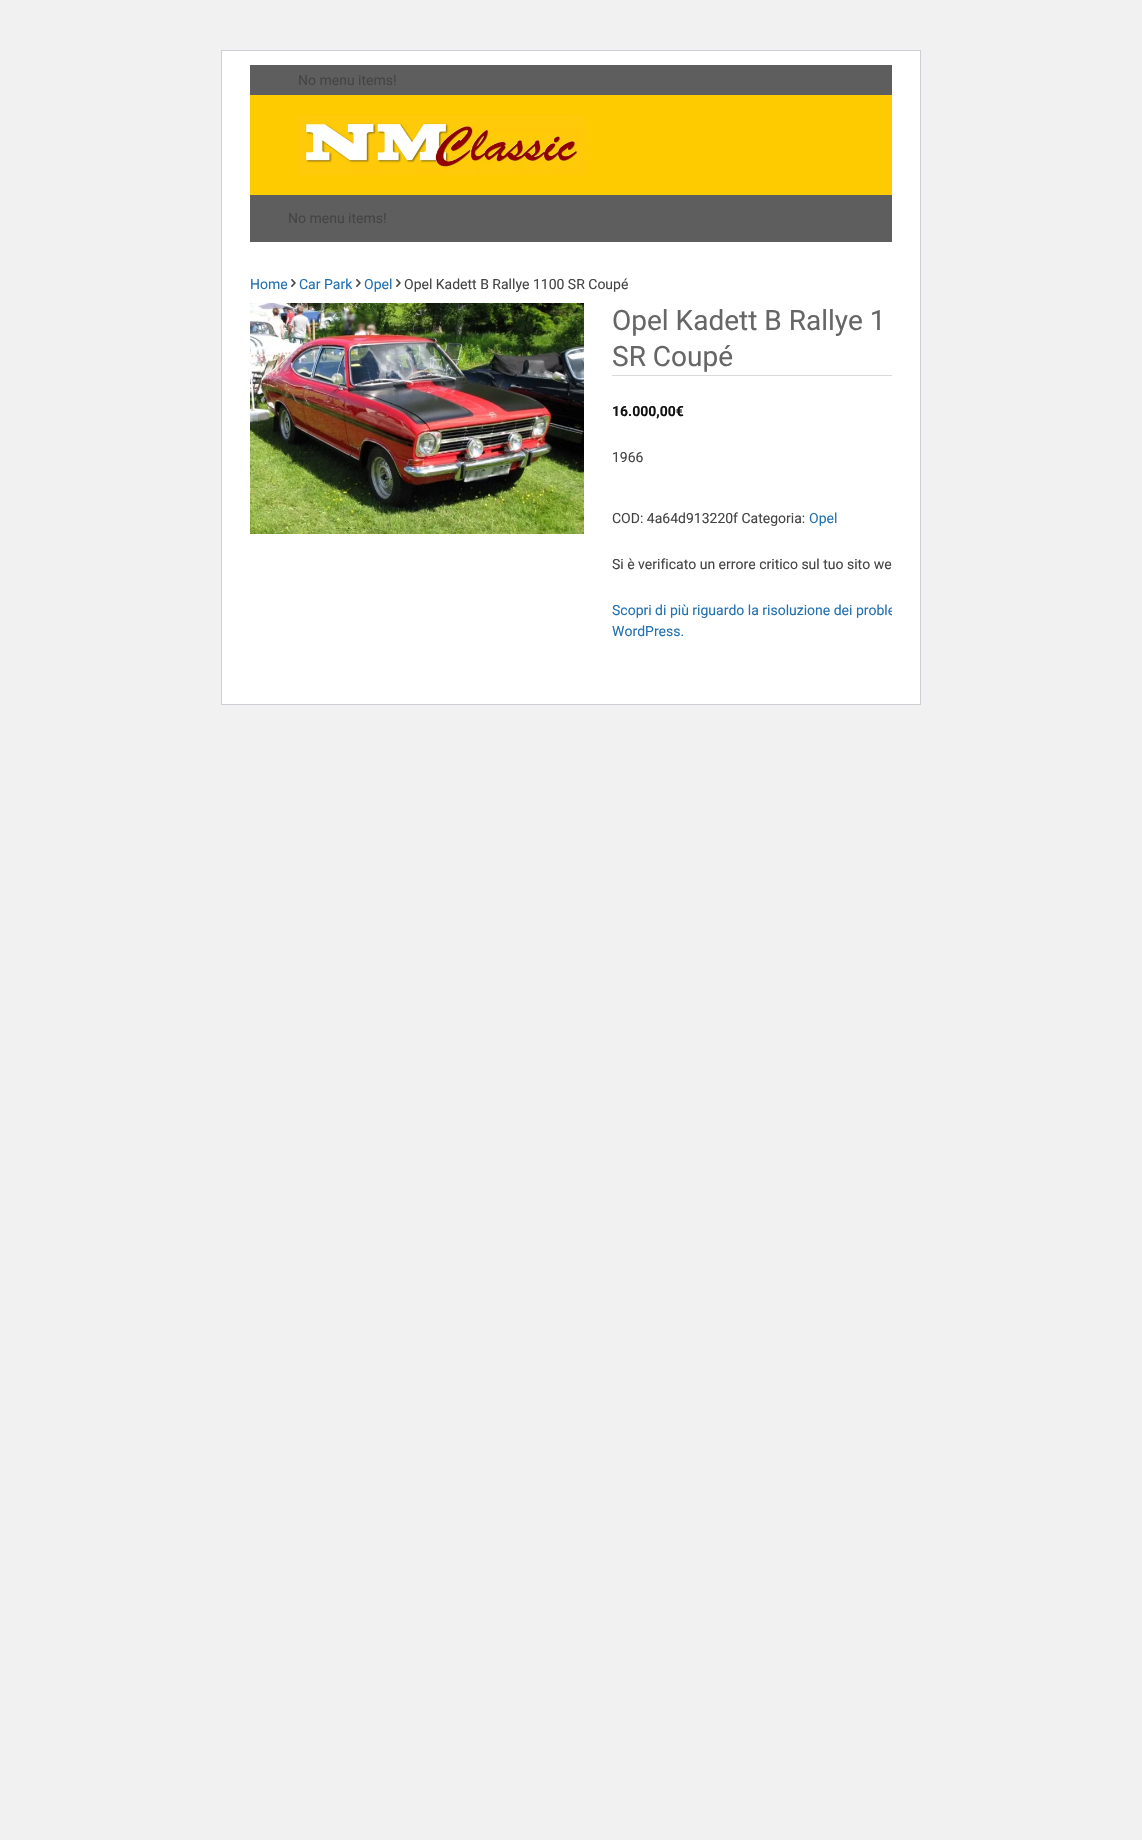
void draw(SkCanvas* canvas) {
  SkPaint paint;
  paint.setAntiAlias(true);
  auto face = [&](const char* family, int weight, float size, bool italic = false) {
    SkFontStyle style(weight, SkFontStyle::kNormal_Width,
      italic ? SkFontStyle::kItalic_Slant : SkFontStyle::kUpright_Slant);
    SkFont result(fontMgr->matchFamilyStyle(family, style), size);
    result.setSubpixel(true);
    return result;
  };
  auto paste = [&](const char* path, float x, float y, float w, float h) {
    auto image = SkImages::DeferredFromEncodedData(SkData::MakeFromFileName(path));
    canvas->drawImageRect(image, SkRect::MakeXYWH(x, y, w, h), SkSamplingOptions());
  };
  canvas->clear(0xfff1f1f1);
  paint.setColor(0xffffffff);
  canvas->drawRect(SkRect::MakeXYWH(221.5f, 50.5f, 699, 654), paint);
  paint.setStroke(true);
  paint.setStrokeWidth(1);
  paint.setColor(0xffccd0d4);
  canvas->drawRect(SkRect::MakeXYWH(221.5f, 50.5f, 699, 654), paint);
  paint.setStroke(false);
  paint.setColor(0xff5e5e5e);
  canvas->drawRect(SkRect::MakeXYWH(250, 65, 642, 30), paint);
  paint.setColor(0xfffecb00);
  canvas->drawRect(SkRect::MakeXYWH(250, 95, 642, 100), paint);
  paste("img/1.png", 298, 115, 287, 60);
  paint.setColor(0xff5e5e5e);
  canvas->drawRect(SkRect::MakeXYWH(250, 195, 642, 47), paint);
  paste("img/2.png", 291, 279, 5, 8);
  paste("img/2.png", 356, 279, 5, 8);
  paste("img/2.png", 396, 279, 5, 8);
  paste("img/3.png", 250, 303, 334, 231);
  paint.setColor(0xffdadada);
  canvas->drawRect(SkRect::MakeXYWH(612, 375, 280, 1), paint);
  auto f0 = face("Roboto", 400, 14);
  paint.setColor(0xff444444);
  canvas->drawString("No menu items!", 298, 85, f0, paint);
  canvas->drawString("No menu items!", 288, 223, f0, paint);
  paint.setColor(0xff2271b1);
  {
    const struct { const char* s; float x, y; } items[] = {
      {"Home", 250, 289},
      {"Car Park", 299, 289},
      {"Opel", 364, 289},
    };
    for (auto [s, x, y] : items) {
      canvas->drawString(s, x, y, f0, paint);
    }
  }
  paint.setColor(0xff444444);
  canvas->drawString("Opel Kadett B Rallye 1100 SR Coupé", 404, 289, f0, paint);
  auto f1 = face("Roboto", 400, 28);
  paint.setColor(0xff666666);
  canvas->drawString("Opel Kadett B Rallye 1", 612, 330, f1, paint);
  canvas->drawString("SR Coupé", 612, 366, f1, paint);
  auto f2 = face("Roboto", 700, 14);
  paint.setColor(0xff111111);
  canvas->drawString("16.000,00€", 612, 416, f2, paint);
  paint.setColor(0xff444444);
  canvas->drawString("1966", 612, 462, f0, paint);
  canvas->drawString("COD: 4a64d913220f Categoria:", 612, 523, f0, paint);
  paint.setColor(0xff2271b1);
  canvas->drawString("Opel", 809, 523, f0, paint);
  paint.setColor(0xff444444);
  canvas->drawString("Si è verificato un errore critico sul tuo sito we", 612, 569, f0, paint);
  canvas->save();
  canvas->clipRect(SkRect::MakeXYWH(250, 274, 642, 416));
  paint.setColor(0xff2271b1);
  canvas->drawString("Scopri di più riguardo la risoluzione dei proble", 612, 615, f0, paint);
  canvas->restore();
  canvas->drawString("WordPress.", 612, 636, f0, paint);
}
